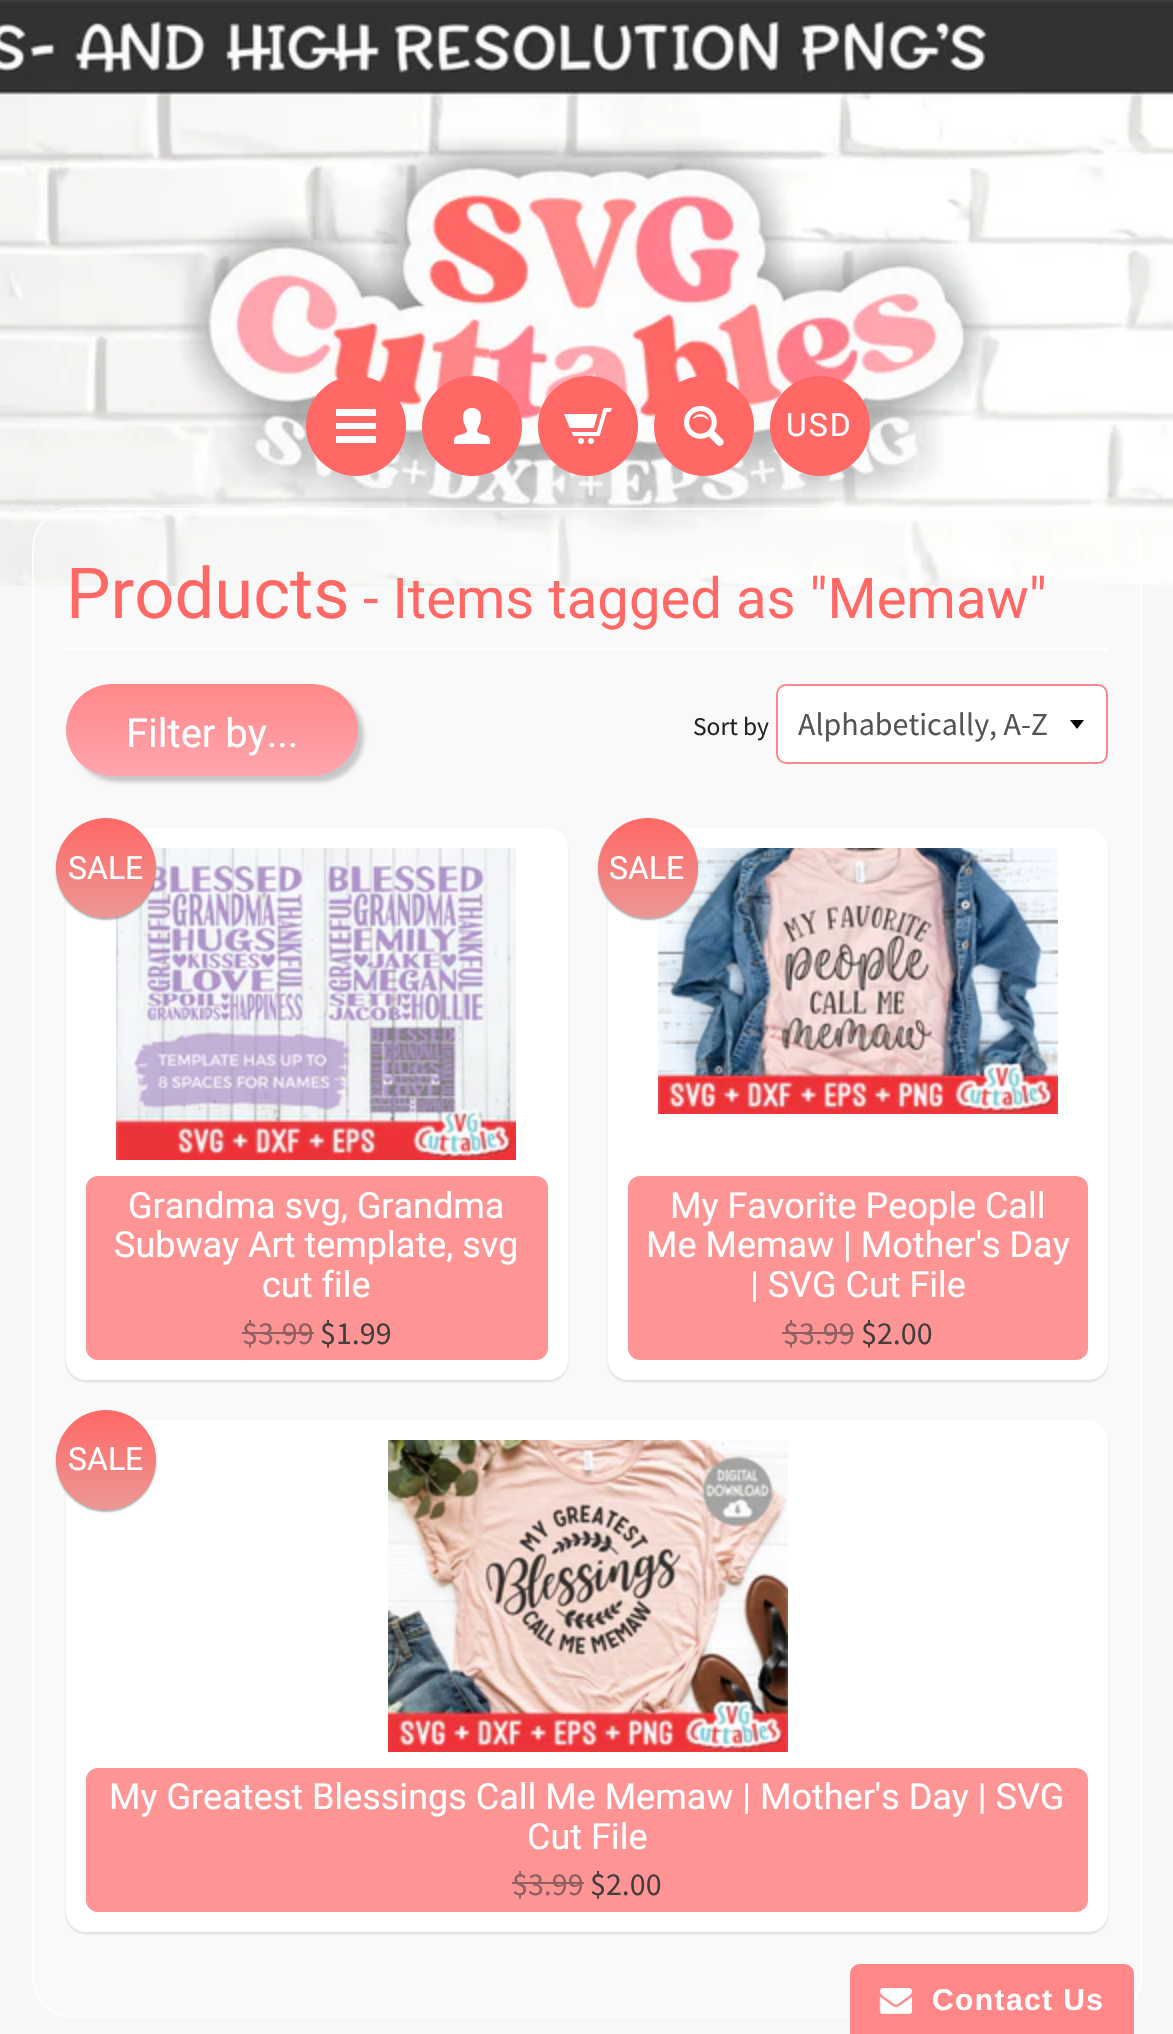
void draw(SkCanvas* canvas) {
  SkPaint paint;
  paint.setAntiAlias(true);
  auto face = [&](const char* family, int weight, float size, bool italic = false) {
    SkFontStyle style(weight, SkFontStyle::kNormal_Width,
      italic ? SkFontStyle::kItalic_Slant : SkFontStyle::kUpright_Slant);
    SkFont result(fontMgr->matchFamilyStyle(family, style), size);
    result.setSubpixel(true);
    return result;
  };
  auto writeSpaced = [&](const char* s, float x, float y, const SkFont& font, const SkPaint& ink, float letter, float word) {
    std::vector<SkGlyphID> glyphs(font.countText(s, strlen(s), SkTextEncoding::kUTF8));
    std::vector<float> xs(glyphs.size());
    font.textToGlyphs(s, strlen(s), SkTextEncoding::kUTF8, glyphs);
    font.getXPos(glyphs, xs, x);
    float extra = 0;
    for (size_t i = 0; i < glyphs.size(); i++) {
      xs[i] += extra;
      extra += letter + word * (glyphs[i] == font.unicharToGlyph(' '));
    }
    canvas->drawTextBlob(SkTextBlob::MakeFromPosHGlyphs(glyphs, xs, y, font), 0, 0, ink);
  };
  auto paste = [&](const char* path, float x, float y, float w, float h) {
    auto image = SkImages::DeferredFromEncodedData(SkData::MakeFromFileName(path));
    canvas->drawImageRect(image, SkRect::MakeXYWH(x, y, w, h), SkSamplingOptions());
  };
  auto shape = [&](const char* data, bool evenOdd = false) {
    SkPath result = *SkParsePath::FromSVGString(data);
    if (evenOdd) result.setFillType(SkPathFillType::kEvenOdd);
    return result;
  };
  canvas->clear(0xfff7f7f7);
  paste("img/1.png", 0, 0, 1173, 586);
  paste("img/2.png", 678, 215, 2, 2);
  paint.setColor(0xffff6865);
  canvas->drawCircle(356, 426, 47, paint);
  paint.setStroke(true);
  paint.setStrokeWidth(6);
  canvas->drawCircle(356, 426, 47, paint);
  paint.setStroke(false);
  paint.setColor(0xffffffff);
  canvas->drawPath(shape("M376 416H336V409H376ZM376 423H336V429H376ZM376 436H336V443H376Z"), paint);
  paint.setColor(0xffff6865);
  canvas->drawCircle(472, 426, 47, paint);
  paint.setStroke(true);
  canvas->drawCircle(472, 426, 47, paint);
  paste("img/3.png", 454, 408, 36, 36);
  paint.setStroke(false);
  canvas->drawCircle(588, 426, 47, paint);
  paint.setStroke(true);
  canvas->drawCircle(588, 426, 47, paint);
  paste("img/4.png", 564, 408, 48, 36);
  paint.setStroke(false);
  canvas->drawCircle(704, 426, 47, paint);
  paint.setStroke(true);
  canvas->drawCircle(704, 426, 47, paint);
  paste("img/5.png", 684, 406, 40, 40);
  paint.setStroke(false);
  canvas->drawCircle(820, 426, 47, paint);
  paint.setStroke(true);
  canvas->drawCircle(820, 426, 47, paint);
  paint.setStroke(false);
  paint.setColor(0x40ffffff);
  canvas->drawRoundRect(SkRect::MakeXYWH(32, 508, 1110, 1510), 40, 40, paint);
  paint.setStroke(true);
  paint.setStrokeWidth(2);
  paint.setColor(0xb3ffffff);
  canvas->drawRoundRect(SkRect::MakeXYWH(33, 509, 1108, 1508), 39, 39, paint);
  paint.setStroke(false);
  paint.setColor(0xffffffff);
  canvas->drawRect(SkRect::MakeXYWH(66, 648, 1042, 2), paint);
  paint.setColor(0x33000000);
  paint.setMaskFilter(SkMaskFilter::MakeBlur(kNormal_SkBlurStyle, 2));
  canvas->drawRoundRect(SkRect::MakeXYWH(72, 690, 292, 92), 46, 46, paint);
  paint.setMaskFilter(nullptr);
  {
    const SkColor colors[] = {0xffff8788, 0xffffa6af};
    const float stops[] = {0, 1};
    const SkPoint ends[] = {{212, 684}, {212, 776}};
    paint.setShader(SkGradientShader::MakeLinear(ends, colors, stops, 2, SkTileMode::kClamp));
    paint.setAlpha(255);
  }
  canvas->drawRoundRect(SkRect::MakeXYWH(66, 684, 292, 92), 46, 46, paint);
  paint.setShader(nullptr);
  paint.setColor(0xffffffff);
  canvas->drawRoundRect(SkRect::MakeXYWH(776, 684, 332, 80), 10, 10, paint);
  paint.setColor(0xff000000);
  canvas->drawPath(shape("M1070 720L1077 729L1084 720Z"), paint);
  paint.setStroke(true);
  paint.setColor(0xffff8788);
  canvas->drawRoundRect(SkRect::MakeXYWH(777, 685, 330, 78), 9, 9, paint);
  paint.setStroke(false);
  paint.setColor(0x1a000000);
  paint.setMaskFilter(SkMaskFilter::MakeBlur(kNormal_SkBlurStyle, 1));
  canvas->drawRoundRect(SkRect::MakeXYWH(66, 830, 502, 552), 20, 20, paint);
  paint.setMaskFilter(nullptr);
  paint.setColor(0xffffffff);
  canvas->drawRoundRect(SkRect::MakeXYWH(66, 828, 502, 552), 20, 20, paint);
  paste("img/6.png", 116, 848, 400, 312);
  paint.setColor(0x4d000000);
  paint.setMaskFilter(SkMaskFilter::MakeBlur(kNormal_SkBlurStyle, 1));
  canvas->drawRoundRect(SkRect::MakeXYWH(56, 820, 100, 100), 50, 50, paint);
  paint.setMaskFilter(nullptr);
  {
    const SkColor colors[] = {0xffff6865, 0xffeb9795};
    const float stops[] = {0, 1};
    const SkPoint ends[] = {{106, 818}, {106, 918}};
    paint.setShader(SkGradientShader::MakeLinear(ends, colors, stops, 2, SkTileMode::kClamp));
    paint.setAlpha(255);
  }
  canvas->drawCircle(106, 868, 50, paint);
  paint.setShader(nullptr);
  paint.setColor(0xffff9495);
  canvas->drawRoundRect(SkRect::MakeXYWH(86, 1176, 462, 184), 12, 12, paint);
  paint.setColor(0xff8e6061);
  canvas->drawRect(SkRect::MakeXYWH(242, 1332, 72, 2), paint);
  paint.setColor(0x1a000000);
  paint.setMaskFilter(SkMaskFilter::MakeBlur(kNormal_SkBlurStyle, 1));
  canvas->drawRoundRect(SkRect::MakeXYWH(608, 830, 500, 552), 20, 20, paint);
  paint.setMaskFilter(nullptr);
  paint.setColor(0xffffffff);
  canvas->drawRoundRect(SkRect::MakeXYWH(608, 828, 500, 552), 20, 20, paint);
  paste("img/7.png", 658, 848, 400, 266);
  paint.setColor(0x4d000000);
  paint.setMaskFilter(SkMaskFilter::MakeBlur(kNormal_SkBlurStyle, 1));
  canvas->drawRoundRect(SkRect::MakeXYWH(598, 820, 100, 100), 50, 50, paint);
  paint.setMaskFilter(nullptr);
  {
    const SkColor colors[] = {0xffff6865, 0xffeb9795};
    const float stops[] = {0, 1};
    const SkPoint ends[] = {{648, 818}, {648, 918}};
    paint.setShader(SkGradientShader::MakeLinear(ends, colors, stops, 2, SkTileMode::kClamp));
    paint.setAlpha(255);
  }
  canvas->drawCircle(648, 868, 50, paint);
  paint.setShader(nullptr);
  paint.setColor(0xffff9495);
  canvas->drawRoundRect(SkRect::MakeXYWH(628, 1176, 460, 184), 12, 12, paint);
  paint.setColor(0xff8e6061);
  canvas->drawRect(SkRect::MakeXYWH(782, 1332, 72, 2), paint);
  paint.setColor(0x1a000000);
  paint.setMaskFilter(SkMaskFilter::MakeBlur(kNormal_SkBlurStyle, 1));
  canvas->drawRoundRect(SkRect::MakeXYWH(66, 1422, 1042, 512), 20, 20, paint);
  paint.setMaskFilter(nullptr);
  paint.setColor(0xffffffff);
  canvas->drawRoundRect(SkRect::MakeXYWH(66, 1420, 1042, 512), 20, 20, paint);
  paint.setColor(0x4d000000);
  paint.setMaskFilter(SkMaskFilter::MakeBlur(kNormal_SkBlurStyle, 1));
  canvas->drawRoundRect(SkRect::MakeXYWH(56, 1412, 100, 100), 50, 50, paint);
  paint.setMaskFilter(nullptr);
  {
    const SkColor colors[] = {0xffff6865, 0xffeb9795};
    const float stops[] = {0, 1};
    const SkPoint ends[] = {{106, 1410}, {106, 1510}};
    paint.setShader(SkGradientShader::MakeLinear(ends, colors, stops, 2, SkTileMode::kClamp));
    paint.setAlpha(255);
  }
  canvas->drawCircle(106, 1460, 50, paint);
  paste("img/8.png", 388, 1440, 400, 312);
  paint.setShader(nullptr);
  paint.setColor(0xffff9495);
  canvas->drawRoundRect(SkRect::MakeXYWH(86, 1768, 1002, 144), 12, 12, paint);
  paint.setColor(0xff8e6061);
  canvas->drawRect(SkRect::MakeXYWH(512, 1882, 72, 2), paint);
  paint.setColor(0xffff8788);
  canvas->drawPath(shape("M860 1964H1124C1129.5 1964 1134 1968.5 1134 1974V2034H850V1974C850 1968.5 854.5 1964 860 1964Z"), paint);
  paste("img/9.png", 879, 1988, 33, 26);
  auto f0 = face("Roboto", 400, 32);
  paint.setColor(0xffffffff);
  writeSpaced("USD", 786, 436, f0, paint, 2, 0);
  auto f1 = face("Roboto", 400, 70.5f);
  paint.setColor(0xffff6865);
  canvas->drawString("Products", 66, 618, f1, paint);
  auto f2 = face("Roboto", 400, 56.25f);
  canvas->drawString("- Items tagged as \"Memaw\"", 363, 618, f2, paint);
  auto f3 = face("Roboto", 400, 40);
  paint.setColor(0xffffffff);
  canvas->drawString("Filter by...", 126, 747, f3, paint);
  auto f4 = face("Source Sans Pro", 400, 25.5f);
  paint.setColor(0xff202325);
  canvas->drawString("Sort by", 693, 735, f4, paint);
  auto f5 = face("Source Sans Pro", 400, 32);
  paint.setColor(0xff555555);
  canvas->drawString("Alphabetically, A-Z", 798, 735, f5, paint);
  paint.setColor(0xffffffff);
  canvas->drawString("SALE", 68, 879, f0, paint);
  auto f6 = face("Roboto", 400, 36);
  {
    const struct { const char* s; float x, y; } items[] = {
      {"Grandma svg, Grandma", 128, 1218},
      {"Subway Art template, svg", 114, 1257},
      {"cut file", 262, 1297},
    };
    for (auto [s, x, y] : items) {
      canvas->drawString(s, x, y, f6, paint);
    }
  }
  paint.setColor(0xff8e6061);
  canvas->drawString("$3.99", 242, 1344, f5, paint);
  paint.setColor(0xff423e3e);
  canvas->drawString("$1.99", 320, 1344, f5, paint);
  paint.setColor(0xffffffff);
  canvas->drawString("SALE", 609, 879, f0, paint);
  {
    const struct { const char* s; float x, y; } items[] = {
      {"My Favorite People Call", 670, 1218},
      {"Me Memaw | Mother's Day", 646, 1257},
      {"| SVG Cut File", 750, 1297},
    };
    for (auto [s, x, y] : items) {
      canvas->drawString(s, x, y, f6, paint);
    }
  }
  paint.setColor(0xff8e6061);
  canvas->drawString("$3.99", 783, 1344, f5, paint);
  paint.setColor(0xff423e3e);
  canvas->drawString("$2.00", 861, 1344, f5, paint);
  paint.setColor(0xffffffff);
  canvas->drawString("SALE", 68, 1470, f0, paint);
  canvas->drawString("My Greatest Blessings Call Me Memaw | Mother's Day | SVG", 109, 1809, f6, paint);
  canvas->drawString("Cut File", 527, 1849, f6, paint);
  paint.setColor(0xff8e6061);
  canvas->drawString("$3.99", 512, 1895, f5, paint);
  paint.setColor(0xff423e3e);
  canvas->drawString("$2.00", 590, 1895, f5, paint);
  auto f7 = face("Liberation Sans", 700, 30);
  paint.setColor(0xffffffff);
  writeSpaced("Contact Us", 932, 2010, f7, paint, 1.4f, 0);
}
